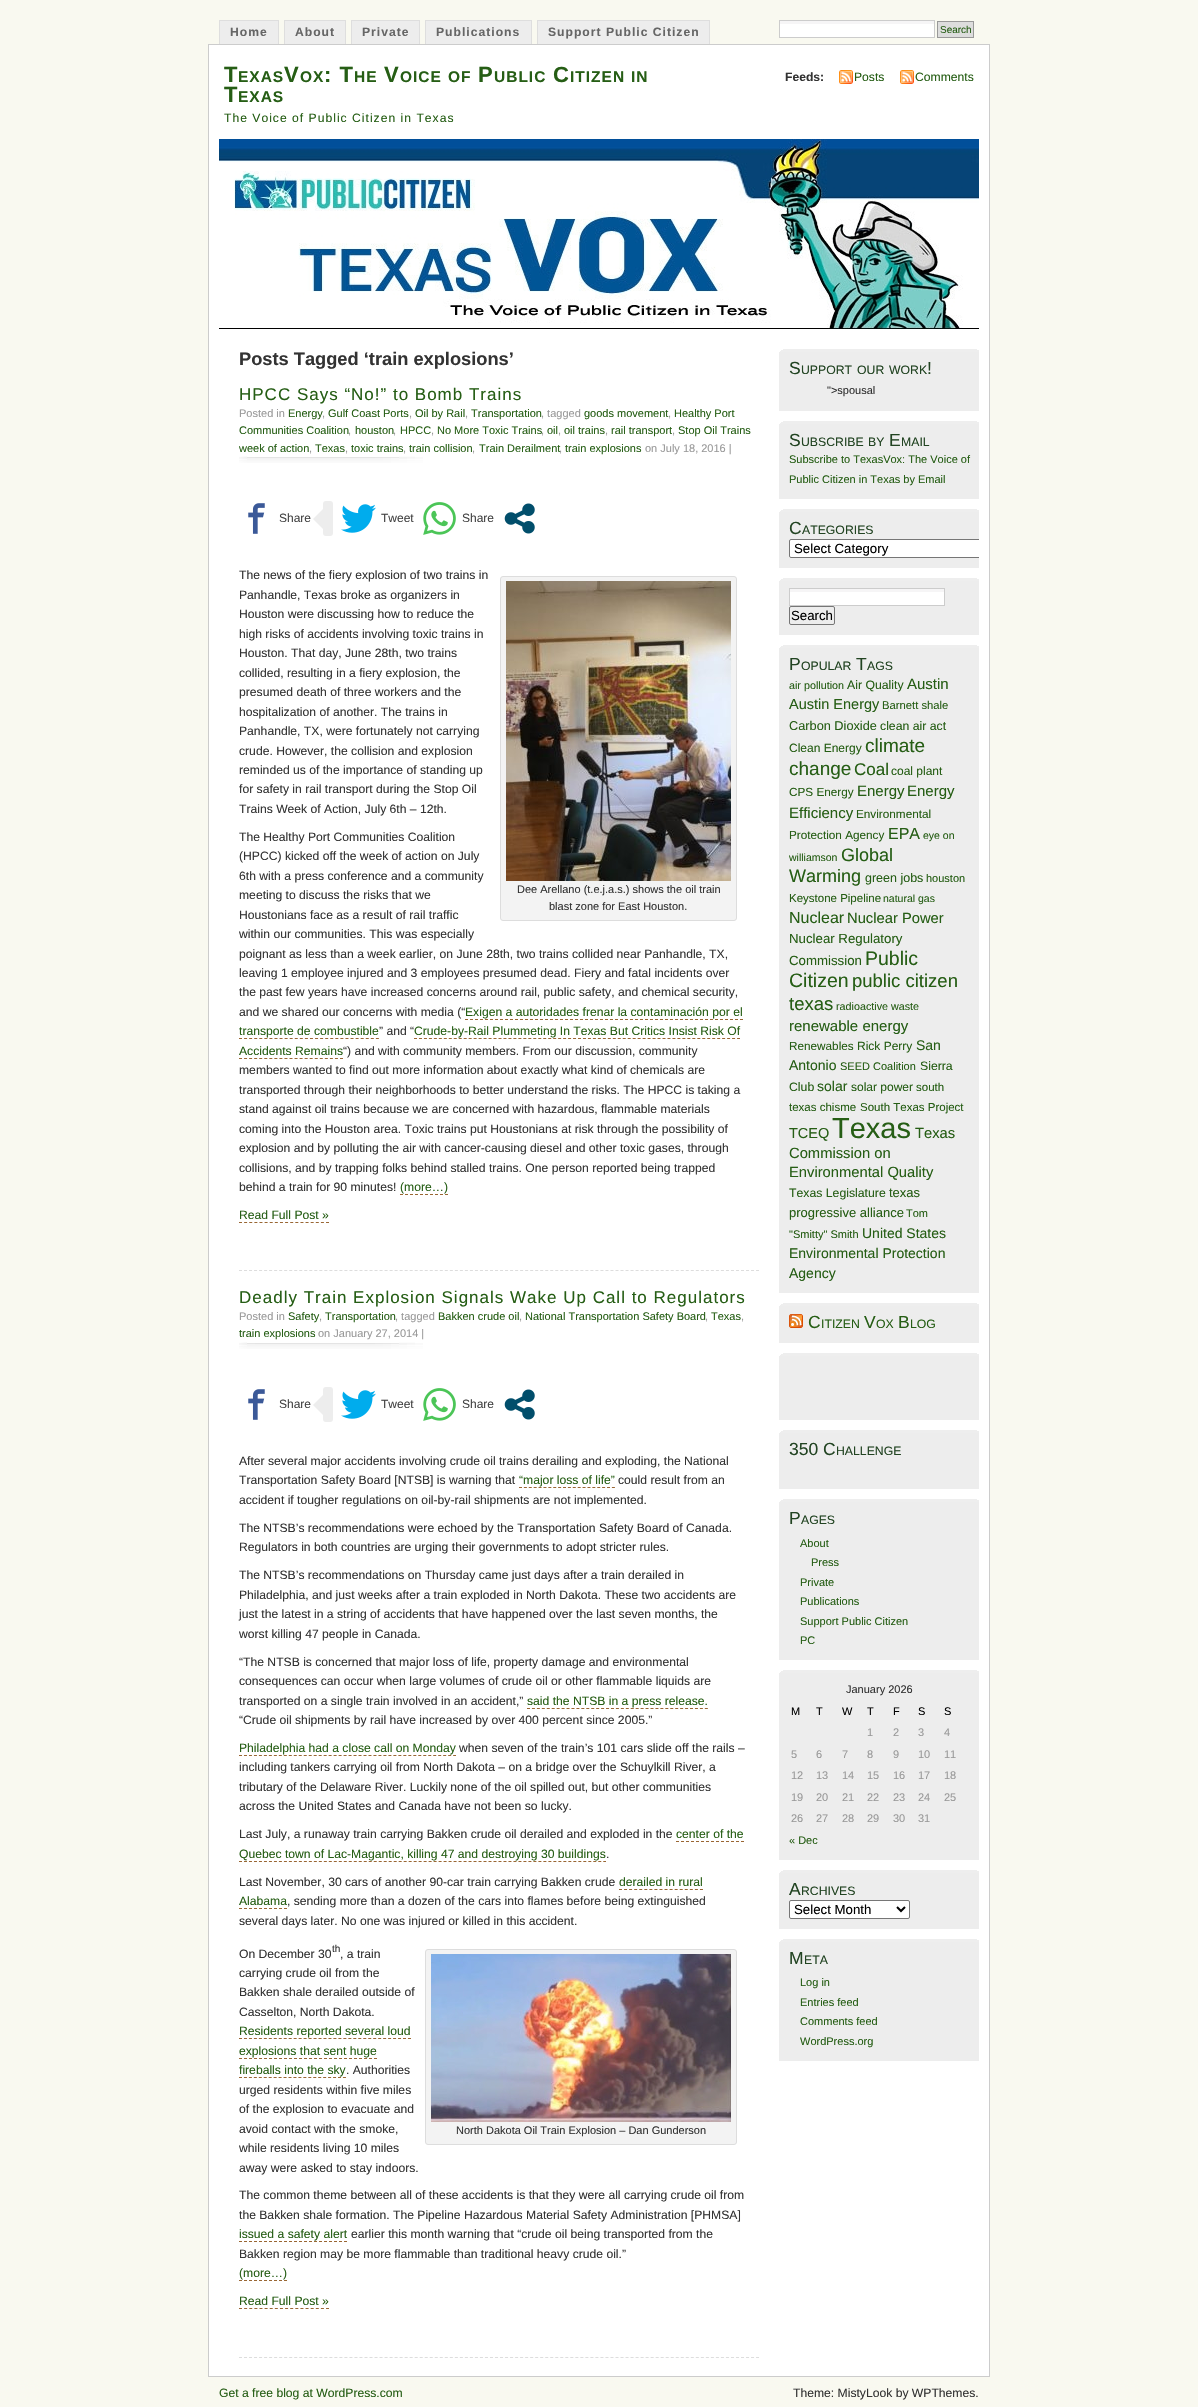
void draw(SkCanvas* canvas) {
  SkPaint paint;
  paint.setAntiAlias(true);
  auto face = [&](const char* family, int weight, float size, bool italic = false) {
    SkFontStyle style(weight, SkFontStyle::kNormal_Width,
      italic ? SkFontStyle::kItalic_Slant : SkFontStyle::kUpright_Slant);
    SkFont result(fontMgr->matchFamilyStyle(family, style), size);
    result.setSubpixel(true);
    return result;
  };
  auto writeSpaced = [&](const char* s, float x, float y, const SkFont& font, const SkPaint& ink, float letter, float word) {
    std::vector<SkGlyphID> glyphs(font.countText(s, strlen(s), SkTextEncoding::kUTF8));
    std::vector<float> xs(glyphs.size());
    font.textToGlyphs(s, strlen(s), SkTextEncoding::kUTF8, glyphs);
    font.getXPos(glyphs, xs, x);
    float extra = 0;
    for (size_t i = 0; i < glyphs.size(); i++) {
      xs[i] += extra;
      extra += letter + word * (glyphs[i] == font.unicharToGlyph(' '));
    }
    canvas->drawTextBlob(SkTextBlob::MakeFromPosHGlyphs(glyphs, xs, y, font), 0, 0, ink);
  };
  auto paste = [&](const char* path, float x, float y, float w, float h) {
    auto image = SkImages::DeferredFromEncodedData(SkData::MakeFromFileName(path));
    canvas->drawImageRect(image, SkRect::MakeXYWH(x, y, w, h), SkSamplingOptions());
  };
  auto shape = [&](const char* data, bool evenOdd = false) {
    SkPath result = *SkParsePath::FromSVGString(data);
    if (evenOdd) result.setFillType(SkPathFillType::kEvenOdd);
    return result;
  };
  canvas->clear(0xfff9f9f0);
  {
    const struct { float x, y, w, h; SkColor color; } items[] = {
      {220, 21, 58, 23, 0xffededed},
      {219, 20, 60, 1, 0xffdedede},
      {278, 20, 1, 24, 0xffdedede},
      {219, 20, 1, 24, 0xffdedede},
      {285, 21, 60, 23, 0xffededed},
      {284, 20, 62, 1, 0xffdedede},
      {345, 20, 1, 24, 0xffdedede},
      {284, 20, 1, 24, 0xffdedede},
      {352, 21, 67, 23, 0xffededed},
      {351, 20, 69, 1, 0xffdedede},
      {419, 20, 1, 24, 0xffdedede},
      {351, 20, 1, 24, 0xffdedede},
      {426, 21, 105, 23, 0xffededed},
      {425, 20, 107, 1, 0xffdedede},
      {531, 20, 1, 24, 0xffdedede},
      {425, 20, 1, 24, 0xffdedede},
      {538, 21, 171, 23, 0xffededed},
      {537, 20, 173, 1, 0xffdedede},
      {709, 20, 1, 24, 0xffdedede},
      {537, 20, 1, 24, 0xffdedede},
      {780, 24, 154, 13, 0xffffffff},
      {779, 21, 156, 3, 0xfff6f5f6},
    };
    for (auto [x, y, w, h, color] : items) {
      paint.setColor(color);
      canvas->drawRect(SkRect::MakeXYWH(x, y, w, h), paint);
    }
  }
  paint.setStroke(true);
  paint.setStrokeWidth(1);
  paint.setColor(0xffcccccc);
  canvas->drawRect(SkRect::MakeXYWH(779.5f, 20.5f, 155, 17), paint);
  paint.setStroke(false);
  paint.setColor(0xffdddddd);
  canvas->drawRect(SkRect::MakeXYWH(937.5f, 21.5f, 36, 16), paint);
  paint.setStroke(true);
  paint.setColor(0xff999999);
  canvas->drawRect(SkRect::MakeXYWH(937.5f, 21.5f, 36, 16), paint);
  paint.setStroke(false);
  paint.setColor(0xffffffff);
  canvas->drawRect(SkRect::MakeXYWH(208.5f, 44.5f, 781, 2332), paint);
  paint.setStroke(true);
  paint.setColor(0xffcccccc);
  canvas->drawRect(SkRect::MakeXYWH(208.5f, 44.5f, 781, 2332), paint);
  paste("img/1.png", 839, 70, 14, 14);
  paste("img/1.png", 900, 70, 14, 14);
  paste("img/2.png", 219, 139, 760, 190);
  paint.setColor(0xffdddddd);
  paint.setPathEffect(SkDashPathEffect::Make({{3, 2.02f}}, 0));
  canvas->drawPath(shape("M239 1270.5H759"), paint);
  paint.setPathEffect(nullptr);
  paste("img/3.png", 239, 456, 184, 7);
  paste("img/4.png", 248, 503, 17, 31);
  paint.setStroke(false);
  paint.setColor(0xffededed);
  canvas->drawRoundRect(SkRect::MakeXYWH(323, 501, 10, 35), 3, 3, paint);
  canvas->drawPath(shape("M323 509V529L313 519Z"), paint);
  paste("img/5.png", 341, 504, 35, 29);
  paste("img/6.png", 423, 502, 33, 33);
  paste("img/7.png", 504, 503, 31, 31);
  paint.setStroke(true);
  paint.setColor(0xff996633);
  paint.setPathEffect(SkDashPathEffect::Make({{3, 2}}, 0));
  canvas->drawPath(shape("M465 1019.5H743"), paint);
  paint.setPathEffect(nullptr);
  paint.setPathEffect(SkDashPathEffect::Make({{3, 2.07f}}, 0));
  canvas->drawPath(shape("M239 1038.5H379"), paint);
  paint.setPathEffect(nullptr);
  paint.setPathEffect(SkDashPathEffect::Make({{3, 1.97f}}, 0));
  canvas->drawPath(shape("M414 1038.5H740"), paint);
  paint.setPathEffect(nullptr);
  paint.setPathEffect(SkDashPathEffect::Make({{3, 2.05f}}, 0));
  canvas->drawPath(shape("M239 1058.5H343"), paint);
  paint.setPathEffect(nullptr);
  paint.setPathEffect(SkDashPathEffect::Make({{3, 2}}, 0));
  canvas->drawPath(shape("M400 1194.5H448"), paint);
  paint.setPathEffect(nullptr);
  paint.setStroke(false);
  paint.setColor(0xfff3f3f3);
  canvas->drawRoundRect(SkRect::MakeXYWH(500.5f, 576.5f, 236, 344), 2.5f, 2.5f, paint);
  paint.setStroke(true);
  paint.setColor(0xffdddddd);
  canvas->drawRoundRect(SkRect::MakeXYWH(500.5f, 576.5f, 236, 344), 2.5f, 2.5f, paint);
  paste("img/8.png", 506, 581, 225, 300);
  paint.setColor(0xff996633);
  paint.setPathEffect(SkDashPathEffect::Make({{3, 2.12f}}, 0));
  canvas->drawPath(shape("M239 1222.5H329"), paint);
  paint.setPathEffect(nullptr);
  paint.setColor(0xffdddddd);
  paint.setPathEffect(SkDashPathEffect::Make({{3, 2.02f}}, 0));
  canvas->drawPath(shape("M239 2357.5H759"), paint);
  paint.setPathEffect(nullptr);
  paste("img/3.png", 239, 1342, 184, 7);
  paste("img/4.png", 248, 1389, 17, 31);
  paint.setStroke(false);
  paint.setColor(0xffededed);
  canvas->drawRoundRect(SkRect::MakeXYWH(323, 1387, 10, 35), 3, 3, paint);
  canvas->drawPath(shape("M323 1395V1415L313 1405Z"), paint);
  paste("img/5.png", 341, 1390, 35, 29);
  paste("img/6.png", 423, 1388, 33, 33);
  paste("img/7.png", 504, 1389, 31, 31);
  paint.setStroke(true);
  paint.setColor(0xff996633);
  paint.setPathEffect(SkDashPathEffect::Make({{3, 1.89f}}, 0));
  canvas->drawPath(shape("M519 1487.5H615"), paint);
  paint.setPathEffect(nullptr);
  paint.setPathEffect(SkDashPathEffect::Make({{3, 1.94f}}, 0));
  canvas->drawPath(shape("M527 1708.5H708"), paint);
  paint.setPathEffect(nullptr);
  paint.setPathEffect(SkDashPathEffect::Make({{3, 1.98f}}, 0));
  canvas->drawPath(shape("M239 1755.5H456"), paint);
  paint.setPathEffect(nullptr);
  paint.setPathEffect(SkDashPathEffect::Make({{3, 2}}, 0));
  canvas->drawPath(shape("M676 1841.5H744"), paint);
  paint.setPathEffect(nullptr);
  paint.setPathEffect(SkDashPathEffect::Make({{3, 1.99f}}, 0));
  canvas->drawPath(shape("M239 1861.5H606"), paint);
  paint.setPathEffect(nullptr);
  paint.setPathEffect(SkDashPathEffect::Make({{3, 2.06f}}, 0));
  canvas->drawPath(shape("M619 1889.5H703"), paint);
  paint.setPathEffect(nullptr);
  paint.setPathEffect(SkDashPathEffect::Make({{3, 2}}, 0));
  canvas->drawPath(shape("M239 1908.5H287"), paint);
  paint.setPathEffect(nullptr);
  paint.setPathEffect(SkDashPathEffect::Make({{3, 1.97f}}, 0));
  canvas->drawPath(shape("M239 2038.5H411"), paint);
  paint.setPathEffect(nullptr);
  paint.setPathEffect(SkDashPathEffect::Make({{3, 2}}, 0));
  canvas->drawPath(shape("M239 2058.5H377"), paint);
  paint.setPathEffect(nullptr);
  paint.setPathEffect(SkDashPathEffect::Make({{3, 1.95f}}, 0));
  canvas->drawPath(shape("M239 2077.5H346"), paint);
  paint.setPathEffect(nullptr);
  paint.setStroke(false);
  paint.setColor(0xfff3f3f3);
  canvas->drawRoundRect(SkRect::MakeXYWH(425.5f, 1949.5f, 311, 195), 2.5f, 2.5f, paint);
  paint.setStroke(true);
  paint.setColor(0xffdddddd);
  canvas->drawRoundRect(SkRect::MakeXYWH(425.5f, 1949.5f, 311, 195), 2.5f, 2.5f, paint);
  paste("img/9.png", 431, 1954, 300, 168);
  paint.setColor(0xff996633);
  paint.setPathEffect(SkDashPathEffect::Make({{3, 2}}, 0));
  canvas->drawPath(shape("M239 2241.5H347"), paint);
  paint.setPathEffect(nullptr);
  paint.setPathEffect(SkDashPathEffect::Make({{3, 2}}, 0));
  canvas->drawPath(shape("M239 2280.5H287"), paint);
  paint.setPathEffect(nullptr);
  paint.setPathEffect(SkDashPathEffect::Make({{3, 2.12f}}, 0));
  canvas->drawPath(shape("M239 2308.5H329"), paint);
  paint.setPathEffect(nullptr);
  paint.setStroke(false);
  paint.setColor(0xffededed);
  canvas->drawRect(SkRect::MakeXYWH(779, 352, 200, 59), paint);
  paste("img/10.png", 779, 349, 200, 3);
  canvas->drawRect(SkRect::MakeXYWH(779, 424, 200, 75), paint);
  paste("img/10.png", 779, 421, 200, 3);
  canvas->drawRect(SkRect::MakeXYWH(779, 512, 200, 56), paint);
  paste("img/10.png", 779, 509, 200, 3);
  paint.setColor(0xffffffff);
  canvas->drawPath(shape("M791 539H979V558H791C790 558 789 557 789 556V541C789 540 790 539 791 539Z"), paint);
  canvas->save();
  canvas->clipRect(SkRect::MakeXYWH(779, 349, 200, 1722));
  paint.setStroke(true);
  paint.setColor(0xff767676);
  canvas->drawRoundRect(SkRect::MakeXYWH(789.5f, 539.5f, 220, 18), 1.5f, 1.5f, paint);
  canvas->restore();
  paint.setStroke(false);
  paint.setColor(0xffededed);
  canvas->drawRect(SkRect::MakeXYWH(779, 581, 200, 54), paint);
  paste("img/10.png", 779, 578, 200, 3);
  paint.setColor(0xffffffff);
  canvas->drawRect(SkRect::MakeXYWH(790, 592, 154, 13), paint);
  paint.setColor(0xfff6f5f6);
  canvas->drawRect(SkRect::MakeXYWH(789, 589, 156, 3), paint);
  paint.setStroke(true);
  paint.setColor(0xffcccccc);
  canvas->drawRect(SkRect::MakeXYWH(789.5f, 588.5f, 155, 17), paint);
  paint.setColor(0xff767676);
  canvas->drawRoundRect(SkRect::MakeXYWH(789.5f, 606.5f, 45, 18), 1.5f, 1.5f, paint);
  paint.setStroke(false);
  paint.setColor(0xffededed);
  canvas->drawRect(SkRect::MakeXYWH(779, 648, 200, 645), paint);
  paste("img/10.png", 779, 645, 200, 3);
  canvas->drawRect(SkRect::MakeXYWH(779, 1306, 200, 37), paint);
  paste("img/10.png", 779, 1303, 200, 3);
  paste("img/11.png", 789, 1314, 14, 14);
  canvas->drawRect(SkRect::MakeXYWH(779, 1356, 200, 64), paint);
  paste("img/10.png", 779, 1353, 200, 3);
  canvas->drawRect(SkRect::MakeXYWH(779, 1433, 200, 56), paint);
  paste("img/10.png", 779, 1430, 200, 3);
  canvas->drawRect(SkRect::MakeXYWH(779, 1502, 200, 158), paint);
  paste("img/10.png", 779, 1499, 200, 3);
  canvas->drawRect(SkRect::MakeXYWH(779, 1673, 200, 187), paint);
  paste("img/10.png", 779, 1670, 200, 3);
  canvas->drawRect(SkRect::MakeXYWH(779, 1873, 200, 56), paint);
  paste("img/10.png", 779, 1870, 200, 3);
  paint.setColor(0xffffffff);
  canvas->drawRoundRect(SkRect::MakeXYWH(789.5f, 1900.5f, 120, 18), 1.5f, 1.5f, paint);
  paint.setStroke(true);
  paint.setColor(0xff767676);
  canvas->drawRoundRect(SkRect::MakeXYWH(789.5f, 1900.5f, 120, 18), 1.5f, 1.5f, paint);
  paint.setStrokeWidth(2);
  paint.setColor(0xff000000);
  canvas->drawPath(shape("M897 1907L901 1911L905 1907"), paint);
  paint.setStroke(false);
  paint.setColor(0xffededed);
  canvas->drawRect(SkRect::MakeXYWH(779, 1942, 200, 119), paint);
  paste("img/10.png", 779, 1939, 200, 3);
  auto f0 = face("Liberation Sans", 700, 12.15f);
  paint.setColor(0xff666666);
  {
    const struct { const char* s; float x, y; } items[] = {
      {"Home", 230, 36},
      {"About", 295, 36},
      {"Private", 362, 36},
      {"Publications", 436, 36},
      {"Support Public Citizen", 548, 36},
    };
    for (auto [s, x, y] : items) {
      writeSpaced(s, x, y, f0, paint, 1, 0);
    }
  }
  auto f1 = face("Liberation Sans", 400, 10);
  paint.setColor(0xff265e15);
  canvas->drawString("Search", 940, 33, f1, paint);
  auto f2 = face("Liberation Sans", 700, 22);
  writeSpaced("T", 224, 82, f2, paint, 1, 0);
  auto f3 = face("Liberation Sans", 700, 15.5f);
  writeSpaced("EXAS", 238, 82, f3, paint, 1, 0);
  writeSpaced("V", 284, 82, f2, paint, 1, 0);
  writeSpaced("OX", 300, 82, f3, paint, 1, 0);
  writeSpaced(": T", 324, 82, f2, paint, 1, 0);
  writeSpaced("HE", 354, 82, f3, paint, 1, 0);
  writeSpaced("V", 384, 82, f2, paint, 1, 0);
  writeSpaced("OICE", 400, 82, f3, paint, 1, 0);
  writeSpaced("OF", 448, 82, f3, paint, 1, 0);
  writeSpaced("P", 478, 82, f2, paint, 1, 0);
  writeSpaced("UBLIC", 494, 82, f3, paint, 1, 0);
  writeSpaced("C", 553, 82, f2, paint, 1, 0);
  writeSpaced("ITIZEN", 570, 82, f3, paint, 1, 0);
  writeSpaced("IN", 631, 82, f3, paint, 1, 0);
  writeSpaced("T", 224, 102, f2, paint, 1, 0);
  writeSpaced("EXAS", 238, 102, f3, paint, 1, 0);
  auto f4 = face("Liberation Sans", 400, 12.15f);
  writeSpaced("The Voice of Public Citizen in Texas", 224, 122, f4, paint, 1, 0);
  paint.setColor(0xff333333);
  canvas->drawString("Feeds:", 785, 81, f0, paint);
  paint.setColor(0xff265e15);
  canvas->drawString("Posts", 854, 81, f4, paint);
  canvas->drawString("Comments", 915, 81, f4, paint);
  auto f5 = face("Liberation Sans", 700, 18.25f);
  paint.setColor(0xff333333);
  canvas->drawString("Posts Tagged ‘train explosions’", 239, 365, f5, paint);
  auto f6 = face("Liberation Sans", 400, 17);
  paint.setColor(0xff265e15);
  writeSpaced("HPCC Says “No!” to Bomb Trains", 239, 400, f6, paint, 1, 0);
  auto f7 = face("Liberation Sans", 400, 11);
  paint.setColor(0xff999999);
  canvas->drawString("Posted in", 239, 417, f7, paint);
  paint.setColor(0xff265e15);
  canvas->drawString("Energy", 288, 417, f7, paint);
  paint.setColor(0xff999999);
  canvas->drawString(",", 322, 417, f7, paint);
  paint.setColor(0xff265e15);
  canvas->drawString("Gulf Coast Ports", 328, 417, f7, paint);
  paint.setColor(0xff999999);
  canvas->drawString(",", 409, 417, f7, paint);
  paint.setColor(0xff265e15);
  canvas->drawString("Oil by Rail", 415, 417, f7, paint);
  paint.setColor(0xff999999);
  canvas->drawString(",", 465, 417, f7, paint);
  paint.setColor(0xff265e15);
  canvas->drawString("Transportation", 471, 417, f7, paint);
  paint.setColor(0xff999999);
  canvas->drawString(", tagged", 541, 417, f7, paint);
  paint.setColor(0xff265e15);
  canvas->drawString("goods movement", 584, 417, f7, paint);
  paint.setColor(0xff999999);
  canvas->drawString(",", 668, 417, f7, paint);
  paint.setColor(0xff265e15);
  canvas->drawString("Healthy Port", 674, 417, f7, paint);
  canvas->drawString("Communities Coalition", 239, 434, f7, paint);
  paint.setColor(0xff999999);
  canvas->drawString(",", 348, 434, f7, paint);
  paint.setColor(0xff265e15);
  canvas->drawString("houston", 355, 434, f7, paint);
  paint.setColor(0xff999999);
  canvas->drawString(",", 393, 434, f7, paint);
  paint.setColor(0xff265e15);
  canvas->drawString("HPCC", 400, 434, f7, paint);
  paint.setColor(0xff999999);
  canvas->drawString(",", 431, 434, f7, paint);
  paint.setColor(0xff265e15);
  canvas->drawString("No More Toxic Trains", 437, 434, f7, paint);
  paint.setColor(0xff999999);
  canvas->drawString(",", 541, 434, f7, paint);
  paint.setColor(0xff265e15);
  canvas->drawString("oil", 547, 434, f7, paint);
  paint.setColor(0xff999999);
  canvas->drawString(",", 558, 434, f7, paint);
  paint.setColor(0xff265e15);
  canvas->drawString("oil trains", 564, 434, f7, paint);
  paint.setColor(0xff999999);
  canvas->drawString(",", 605, 434, f7, paint);
  paint.setColor(0xff265e15);
  canvas->drawString("rail transport", 611, 434, f7, paint);
  paint.setColor(0xff999999);
  canvas->drawString(",", 672, 434, f7, paint);
  paint.setColor(0xff265e15);
  canvas->drawString("Stop Oil Trains", 678, 434, f7, paint);
  canvas->drawString("week of action", 239, 452, f7, paint);
  paint.setColor(0xff999999);
  canvas->drawString(",", 309, 452, f7, paint);
  paint.setColor(0xff265e15);
  canvas->drawString("Texas", 315, 452, f7, paint);
  paint.setColor(0xff999999);
  canvas->drawString(",", 345, 452, f7, paint);
  paint.setColor(0xff265e15);
  canvas->drawString("toxic trains", 351, 452, f7, paint);
  paint.setColor(0xff999999);
  canvas->drawString(",", 403, 452, f7, paint);
  paint.setColor(0xff265e15);
  canvas->drawString("train collision", 409, 452, f7, paint);
  paint.setColor(0xff999999);
  canvas->drawString(",", 472, 452, f7, paint);
  paint.setColor(0xff265e15);
  canvas->drawString("Train Derailment", 479, 452, f7, paint);
  paint.setColor(0xff999999);
  canvas->drawString(",", 559, 452, f7, paint);
  paint.setColor(0xff265e15);
  canvas->drawString("train explosions", 565, 452, f7, paint);
  paint.setColor(0xff999999);
  canvas->drawString("on July 18, 2016 |", 645, 452, f7, paint);
  auto f8 = face("Liberation Sans", 400, 12);
  paint.setColor(0xff424242);
  {
    const struct { const char* s; float x, y; } items[] = {
      {"Share", 279, 522},
      {"Tweet", 381, 522},
      {"Share", 462, 522},
    };
    for (auto [s, x, y] : items) {
      canvas->drawString(s, x, y, f8, paint);
    }
  }
  paint.setColor(0xff333333);
  {
    const struct { const char* s; float x, y; } items[] = {
      {"The news of the fiery explosion of two trains in", 239, 579},
      {"Panhandle, Texas broke as organizers in", 239, 599},
      {"Houston were discussing how to reduce the", 239, 618},
      {"high risks of accidents involving toxic trains in", 239, 638},
      {"Houston. That day, June 28th, two trains", 239, 657},
      {"collided, resulting in a fiery explosion, the", 239, 677},
      {"presumed death of three workers and the", 239, 696},
      {"hospitalization of another. The trains in", 239, 716},
      {"Panhandle, TX, were fortunately not carrying", 239, 735},
      {"crude. However, the collision and explosion", 239, 755},
      {"reminded us of the importance of standing up", 239, 774},
      {"for safety in rail transport during the Stop Oil", 239, 793},
      {"Trains Week of Action, July 6th – 12th.", 239, 813},
      {"The Healthy Port Communities Coalition", 239, 841},
      {"(HPCC) kicked off the week of action on July", 239, 860},
      {"6th with a press conference and a community", 239, 880},
      {"meeting to discuss the risks that we", 239, 899},
      {"Houstonians face as a result of rail traffic", 239, 919},
      {"within our communities. This was especially", 239, 938},
      {"poignant as less than a week earlier, on June 28th, two trains collided near Panhandle, TX,", 239, 958},
      {"leaving 1 employee injured and 3 employees presumed dead. Fiery and fatal incidents over", 239, 977},
      {"the past few years have increased concerns around rail, public safety, and chemical security,", 239, 996},
      {"and we shared our concerns with media (“", 239, 1016},
    };
    for (auto [s, x, y] : items) {
      canvas->drawString(s, x, y, f4, paint);
    }
  }
  paint.setColor(0xff265e15);
  canvas->drawString("Exigen a autoridades frenar la contaminación por el", 465, 1016, f4, paint);
  canvas->drawString("transporte de combustible", 239, 1035, f4, paint);
  paint.setColor(0xff333333);
  canvas->drawString("” and “", 379, 1035, f4, paint);
  paint.setColor(0xff265e15);
  canvas->drawString("Crude-by-Rail Plummeting In Texas But Critics Insist Risk Of", 414, 1035, f4, paint);
  canvas->drawString("Accidents Remains", 239, 1055, f4, paint);
  paint.setColor(0xff333333);
  {
    const struct { const char* s; float x, y; } items[] = {
      {"“) and with community members. From our discussion, community", 343, 1055},
      {"members wanted to find out more information about exactly what kind of chemicals are", 239, 1074},
      {"transported through their neighborhoods to better understand the risks. The HPCC is taking a", 239, 1094},
      {"stand against oil trains because we are concerned with hazardous, flammable materials", 239, 1113},
      {"coming into the Houston area. Toxic trains put Houstonians at risk through the possibility of", 239, 1133},
      {"explosion and by polluting the air with cancer-causing diesel and other toxic gases, through", 239, 1152},
      {"collisions, and by trapping folks behind stalled trains. One person reported being trapped", 239, 1172},
      {"behind a train for 90 minutes!", 239, 1191},
    };
    for (auto [s, x, y] : items) {
      canvas->drawString(s, x, y, f4, paint);
    }
  }
  paint.setColor(0xff265e15);
  canvas->drawString("(more…)", 400, 1191, f4, paint);
  paint.setColor(0xff333333);
  canvas->drawString("Dee Arellano (t.e.j.a.s.) shows the oil train", 517, 893, f7, paint);
  canvas->drawString("blast zone for East Houston.", 549, 910, f7, paint);
  paint.setColor(0xff265e15);
  canvas->drawString("Read Full Post »", 239, 1219, f4, paint);
  writeSpaced("Deadly Train Explosion Signals Wake Up Call to Regulators", 239, 1303, f6, paint, 1, 0);
  paint.setColor(0xff999999);
  canvas->drawString("Posted in", 239, 1320, f7, paint);
  paint.setColor(0xff265e15);
  canvas->drawString("Safety", 288, 1320, f7, paint);
  paint.setColor(0xff999999);
  canvas->drawString(",", 319, 1320, f7, paint);
  paint.setColor(0xff265e15);
  canvas->drawString("Transportation", 325, 1320, f7, paint);
  paint.setColor(0xff999999);
  canvas->drawString(", tagged", 395, 1320, f7, paint);
  paint.setColor(0xff265e15);
  canvas->drawString("Bakken crude oil", 438, 1320, f7, paint);
  paint.setColor(0xff999999);
  canvas->drawString(",", 519, 1320, f7, paint);
  paint.setColor(0xff265e15);
  canvas->drawString("National Transportation Safety Board", 525, 1320, f7, paint);
  paint.setColor(0xff999999);
  canvas->drawString(",", 705, 1320, f7, paint);
  paint.setColor(0xff265e15);
  canvas->drawString("Texas", 711, 1320, f7, paint);
  paint.setColor(0xff999999);
  canvas->drawString(",", 741, 1320, f7, paint);
  paint.setColor(0xff265e15);
  canvas->drawString("train explosions", 239, 1337, f7, paint);
  paint.setColor(0xff999999);
  canvas->drawString("on January 27, 2014 |", 318, 1337, f7, paint);
  paint.setColor(0xff424242);
  {
    const struct { const char* s; float x, y; } items[] = {
      {"Share", 279, 1408},
      {"Tweet", 381, 1408},
      {"Share", 462, 1408},
    };
    for (auto [s, x, y] : items) {
      canvas->drawString(s, x, y, f8, paint);
    }
  }
  paint.setColor(0xff333333);
  canvas->drawString("After several major accidents involving crude oil trains derailing and exploding, the National", 239, 1465, f4, paint);
  canvas->drawString("Transportation Safety Board [NTSB] is warning that", 239, 1484, f4, paint);
  paint.setColor(0xff265e15);
  canvas->drawString("“major loss of life”", 519, 1484, f4, paint);
  paint.setColor(0xff333333);
  {
    const struct { const char* s; float x, y; } items[] = {
      {"could result from an", 618, 1484},
      {"accident if tougher regulations on oil-by-rail shipments are not implemented.", 239, 1504},
      {"The NTSB’s recommendations were echoed by the Transportation Safety Board of Canada.", 239, 1532},
      {"Regulators in both countries are urging their governments to adopt stricter rules.", 239, 1551},
      {"The NTSB’s recommendations on Thursday came just days after a train derailed in", 239, 1579},
      {"Philadelphia, and just weeks after a train exploded in North Dakota. These two accidents are", 239, 1599},
      {"just the latest in a string of accidents that have happened over the last seven months, the", 239, 1618},
      {"worst killing 47 people in Canada.", 239, 1638},
      {"“The NTSB is concerned that major loss of life, property damage and environmental", 239, 1666},
      {"consequences can occur when large volumes of crude oil or other flammable liquids are", 239, 1685},
      {"transported on a single train involved in an accident,”", 239, 1705},
    };
    for (auto [s, x, y] : items) {
      canvas->drawString(s, x, y, f4, paint);
    }
  }
  paint.setColor(0xff265e15);
  canvas->drawString("said the NTSB in a press release.", 527, 1705, f4, paint);
  paint.setColor(0xff333333);
  canvas->drawString("“Crude oil shipments by rail have increased by over 400 percent since 2005.”", 239, 1724, f4, paint);
  paint.setColor(0xff265e15);
  canvas->drawString("Philadelphia had a close call on Monday", 239, 1752, f4, paint);
  paint.setColor(0xff333333);
  {
    const struct { const char* s; float x, y; } items[] = {
      {"when seven of the train’s 101 cars slide off the rails –", 459, 1752},
      {"including tankers carrying oil from North Dakota – on a bridge over the Schuylkill River, a", 239, 1771},
      {"tributary of the Delaware River. Luckily none of the oil spilled out, but other communities", 239, 1791},
      {"across the United States and Canada have not been so lucky.", 239, 1810},
      {"Last July, a runaway train carrying Bakken crude oil derailed and exploded in the", 239, 1838},
    };
    for (auto [s, x, y] : items) {
      canvas->drawString(s, x, y, f4, paint);
    }
  }
  paint.setColor(0xff265e15);
  canvas->drawString("center of the", 676, 1838, f4, paint);
  canvas->drawString("Quebec town of Lac-Magantic, killing 47 and destroying 30 buildings", 239, 1858, f4, paint);
  paint.setColor(0xff333333);
  canvas->drawString(".", 606, 1858, f4, paint);
  canvas->drawString("Last November, 30 cars of another 90-car train carrying Bakken crude", 239, 1886, f4, paint);
  paint.setColor(0xff265e15);
  canvas->drawString("derailed in rural", 619, 1886, f4, paint);
  canvas->drawString("Alabama", 239, 1905, f4, paint);
  paint.setColor(0xff333333);
  {
    const struct { const char* s; float x, y; } items[] = {
      {", sending more than a dozen of the cars into flames before being extinguished", 287, 1905},
      {"several days later. No one was injured or killed in this accident.", 239, 1925},
      {"On December 30", 239, 1958},
    };
    for (auto [s, x, y] : items) {
      canvas->drawString(s, x, y, f4, paint);
    }
  }
  canvas->drawString("th", 332, 1952, f1, paint);
  {
    const struct { const char* s; float x, y; } items[] = {
      {", a train", 340, 1958},
      {"carrying crude oil from the", 239, 1977},
      {"Bakken shale derailed outside of", 239, 1996},
      {"Casselton, North Dakota.", 239, 2016},
    };
    for (auto [s, x, y] : items) {
      canvas->drawString(s, x, y, f4, paint);
    }
  }
  paint.setColor(0xff265e15);
  {
    const struct { const char* s; float x, y; } items[] = {
      {"Residents reported several loud", 239, 2035},
      {"explosions that sent huge", 239, 2055},
      {"fireballs into the sky", 239, 2074},
    };
    for (auto [s, x, y] : items) {
      canvas->drawString(s, x, y, f4, paint);
    }
  }
  paint.setColor(0xff333333);
  {
    const struct { const char* s; float x, y; } items[] = {
      {". Authorities", 346, 2074},
      {"urged residents within five miles", 239, 2094},
      {"of the explosion to evacuate and", 239, 2113},
      {"avoid contact with the smoke,", 239, 2133},
      {"while residents living 10 miles", 239, 2152},
      {"away were asked to stay indoors.", 239, 2172},
    };
    for (auto [s, x, y] : items) {
      canvas->drawString(s, x, y, f4, paint);
    }
  }
  canvas->drawString("North Dakota Oil Train Explosion – Dan Gunderson", 456, 2134, f7, paint);
  canvas->drawString("The common theme between all of these accidents is that they were all carrying crude oil from", 239, 2199, f4, paint);
  canvas->drawString("the Bakken shale formation. The Pipeline Hazardous Material Safety Administration [PHMSA]", 239, 2219, f4, paint);
  paint.setColor(0xff265e15);
  canvas->drawString("issued a safety alert", 239, 2238, f4, paint);
  paint.setColor(0xff333333);
  canvas->drawString("earlier this month warning that “crude oil being transported from the", 351, 2238, f4, paint);
  canvas->drawString("Bakken region may be more flammable than traditional heavy crude oil.”", 239, 2258, f4, paint);
  paint.setColor(0xff265e15);
  canvas->drawString("(more…)", 239, 2277, f4, paint);
  canvas->drawString("Read Full Post »", 239, 2305, f4, paint);
  auto f9 = face("Liberation Sans", 400, 17.5f);
  paint.setColor(0xff224422);
  canvas->drawString("S", 789, 374, f9, paint);
  auto f10 = face("Liberation Sans", 400, 12.25f);
  {
    const struct { const char* s; float x, y; } items[] = {
      {"UPPORT", 801, 374},
      {"OUR", 857, 374},
      {"WORK", 889, 374},
    };
    for (auto [s, x, y] : items) {
      canvas->drawString(s, x, y, f10, paint);
    }
  }
  canvas->drawString("!", 927, 374, f9, paint);
  paint.setColor(0xff333333);
  canvas->drawString("\">spousal", 827, 394, f7, paint);
  paint.setColor(0xff224422);
  canvas->drawString("S", 789, 446, f9, paint);
  canvas->drawString("UBSCRIBE", 801, 446, f10, paint);
  canvas->drawString("BY", 868, 446, f10, paint);
  canvas->drawString("E", 889, 446, f9, paint);
  canvas->drawString("MAIL", 901, 446, f10, paint);
  paint.setColor(0xff265e15);
  canvas->drawString("Subscribe to TexasVox: The Voice of", 789, 463, f7, paint);
  canvas->drawString("Public Citizen in Texas by Email", 789, 483, f7, paint);
  paint.setColor(0xff224422);
  canvas->drawString("C", 789, 534, f9, paint);
  canvas->drawString("ATEGORIES", 802, 534, f10, paint);
  auto f11 = face("Liberation Sans", 400, 13.25f);
  paint.setColor(0xff000000);
  canvas->drawString("Select Category", 794, 553, f11, paint);
  canvas->drawString("Search", 791, 620, f11, paint);
  paint.setColor(0xff224422);
  canvas->drawString("P", 789, 670, f9, paint);
  canvas->drawString("OPULAR", 801, 670, f10, paint);
  canvas->drawString("T", 856, 670, f9, paint);
  canvas->drawString("AGS", 867, 670, f10, paint);
  auto f12 = face("Liberation Sans", 400, 10.75f);
  paint.setColor(0xff265e15);
  canvas->drawString("air pollution", 789, 689, f12, paint);
  canvas->drawString("Air Quality", 847, 689, f10, paint);
  auto f13 = face("Liberation Sans", 400, 15);
  canvas->drawString("Austin", 907, 689, f13, paint);
  auto f14 = face("Liberation Sans", 400, 14.5f);
  canvas->drawString("Austin Energy", 789, 709, f14, paint);
  auto f15 = face("Liberation Sans", 400, 11.25f);
  canvas->drawString("Barnett shale", 882, 709, f15, paint);
  auto f16 = face("Liberation Sans", 400, 12.75f);
  canvas->drawString("Carbon Dioxide", 789, 730, f16, paint);
  canvas->drawString("clean air act", 880, 730, f10, paint);
  canvas->drawString("Clean Energy", 789, 752, f8, paint);
  auto f17 = face("Liberation Sans", 400, 19);
  canvas->drawString("climate", 865, 752, f17, paint);
  canvas->drawString("change", 789, 775, f17, paint);
  canvas->drawString("Coal", 854, 775, f6, paint);
  canvas->drawString("coal plant", 891, 775, f8, paint);
  auto f18 = face("Liberation Sans", 400, 11.75f);
  canvas->drawString("CPS Energy", 789, 796, f18, paint);
  {
    const struct { const char* s; float x, y; } items[] = {
      {"Energy", 857, 796},
      {"Energy", 907, 796},
      {"Efficiency", 789, 818},
    };
    for (auto [s, x, y] : items) {
      canvas->drawString(s, x, y, f13, paint);
    }
  }
  canvas->drawString("Environmental", 856, 818, f18, paint);
  canvas->drawString("Protection Agency", 789, 839, f18, paint);
  auto f19 = face("Liberation Sans", 400, 16);
  canvas->drawString("EPA", 888, 839, f19, paint);
  auto f20 = face("Liberation Sans", 400, 10.5f);
  canvas->drawString("eye on", 923, 839, f20, paint);
  canvas->drawString("williamson", 789, 861, f20, paint);
  auto f21 = face("Liberation Sans", 400, 18);
  canvas->drawString("Global", 841, 861, f21, paint);
  canvas->drawString("Warming", 789, 882, f21, paint);
  auto f22 = face("Liberation Sans", 400, 12.5f);
  canvas->drawString("green jobs", 865, 882, f22, paint);
  canvas->drawString("houston", 926, 882, f7, paint);
  auto f23 = face("Liberation Sans", 400, 11.5f);
  canvas->drawString("Keystone Pipeline", 789, 902, f23, paint);
  canvas->drawString("natural gas", 883, 902, f20, paint);
  canvas->drawString("Nuclear", 789, 923, f19, paint);
  auto f24 = face("Liberation Sans", 400, 14.75f);
  canvas->drawString("Nuclear Power", 847, 923, f24, paint);
  canvas->drawString("Nuclear Regulatory", 789, 943, f11, paint);
  canvas->drawString("Commission", 789, 965, f11, paint);
  auto f25 = face("Liberation Sans", 400, 19.5f);
  canvas->drawString("Public", 865, 965, f25, paint);
  canvas->drawString("Citizen", 789, 987, f25, paint);
  auto f26 = face("Liberation Sans", 400, 18.5f);
  canvas->drawString("public citizen", 852, 987, f26, paint);
  canvas->drawString("texas", 789, 1010, f26, paint);
  canvas->drawString("radioactive waste", 836, 1010, f12, paint);
  canvas->drawString("renewable energy", 789, 1031, f13, paint);
  canvas->drawString("Renewables", 789, 1050, f18, paint);
  canvas->drawString("Rick Perry", 857, 1050, f8, paint);
  auto f27 = face("Liberation Sans", 400, 14);
  canvas->drawString("San", 916, 1050, f27, paint);
  canvas->drawString("Antonio", 789, 1070, f27, paint);
  canvas->drawString("SEED Coalition", 840, 1070, f7, paint);
  canvas->drawString("Sierra", 920, 1070, f10, paint);
  canvas->drawString("Club", 789, 1091, f10, paint);
  canvas->drawString("solar", 817, 1091, f27, paint);
  canvas->drawString("solar power", 851, 1091, f8, paint);
  {
    const struct { const char* s; float x, y; } items[] = {
      {"south", 916, 1091},
      {"texas chisme", 789, 1111},
      {"South Texas Project", 860, 1111},
    };
    for (auto [s, x, y] : items) {
      canvas->drawString(s, x, y, f23, paint);
    }
  }
  canvas->drawString("TCEQ", 789, 1138, f14, paint);
  auto f28 = face("Liberation Sans", 400, 29);
  canvas->drawString("Texas", 832, 1138, f28, paint);
  {
    const struct { const char* s; float x, y; } items[] = {
      {"Texas", 915, 1138},
      {"Commission on", 789, 1158},
      {"Environmental Quality", 789, 1177},
    };
    for (auto [s, x, y] : items) {
      canvas->drawString(s, x, y, f24, paint);
    }
  }
  canvas->drawString("Texas Legislature", 789, 1197, f10, paint);
  auto f29 = face("Liberation Sans", 400, 13);
  canvas->drawString("texas", 889, 1197, f29, paint);
  canvas->drawString("progressive alliance", 789, 1217, f29, paint);
  canvas->drawString("Tom", 906, 1217, f7, paint);
  canvas->drawString("\"Smitty\" Smith", 789, 1238, f7, paint);
  {
    const struct { const char* s; float x, y; } items[] = {
      {"United States", 862, 1238},
      {"Environmental Protection", 789, 1258},
      {"Agency", 789, 1278},
    };
    for (auto [s, x, y] : items) {
      canvas->drawString(s, x, y, f27, paint);
    }
  }
  canvas->drawString("C", 808, 1328, f9, paint);
  canvas->drawString("ITIZEN", 821, 1328, f10, paint);
  canvas->drawString("V", 864, 1328, f9, paint);
  canvas->drawString("OX", 876, 1328, f10, paint);
  canvas->drawString("B", 898, 1328, f9, paint);
  canvas->drawString("LOG", 910, 1328, f10, paint);
  paint.setColor(0xff224422);
  canvas->drawString("350 C", 789, 1455, f9, paint);
  canvas->drawString("HALLENGE", 836, 1455, f10, paint);
  canvas->drawString("P", 789, 1524, f9, paint);
  canvas->drawString("AGES", 801, 1524, f10, paint);
  paint.setColor(0xff265e15);
  {
    const struct { const char* s; float x, y; } items[] = {
      {"About", 800, 1547},
      {"Press", 811, 1566},
      {"Private", 800, 1586},
      {"Publications", 800, 1605},
      {"Support Public Citizen", 800, 1625},
      {"PC", 800, 1644},
    };
    for (auto [s, x, y] : items) {
      canvas->drawString(s, x, y, f7, paint);
    }
  }
  paint.setColor(0xff333333);
  canvas->drawString("January 2026", 846, 1693, f7, paint);
  paint.setColor(0xff000000);
  {
    const struct { const char* s; float x, y; } items[] = {
      {"M", 791, 1715},
      {"T", 816, 1715},
      {"W", 842, 1715},
      {"T", 867, 1715},
      {"F", 893, 1715},
      {"S", 918, 1715},
      {"S", 944, 1715},
    };
    for (auto [s, x, y] : items) {
      canvas->drawString(s, x, y, f7, paint);
    }
  }
  paint.setColor(0xff999999);
  {
    const struct { const char* s; float x, y; } items[] = {
      {"1", 867, 1736},
      {"2", 893, 1736},
      {"3", 918, 1736},
      {"4", 944, 1736},
      {"5", 791, 1758},
      {"6", 816, 1758},
      {"7", 842, 1758},
      {"8", 867, 1758},
      {"9", 893, 1758},
      {"10", 918, 1758},
      {"11", 944, 1758},
      {"12", 791, 1779},
      {"13", 816, 1779},
      {"14", 842, 1779},
      {"15", 867, 1779},
      {"16", 893, 1779},
      {"17", 918, 1779},
      {"18", 944, 1779},
      {"19", 791, 1801},
      {"20", 816, 1801},
      {"21", 842, 1801},
      {"22", 867, 1801},
      {"23", 893, 1801},
      {"24", 918, 1801},
      {"25", 944, 1801},
      {"26", 791, 1822},
      {"27", 816, 1822},
      {"28", 842, 1822},
      {"29", 867, 1822},
      {"30", 893, 1822},
      {"31", 918, 1822},
    };
    for (auto [s, x, y] : items) {
      canvas->drawString(s, x, y, f7, paint);
    }
  }
  paint.setColor(0xff265e15);
  canvas->drawString("« Dec", 789, 1844, f7, paint);
  paint.setColor(0xff224422);
  canvas->drawString("A", 789, 1895, f9, paint);
  canvas->drawString("RCHIVES", 801, 1895, f10, paint);
  paint.setColor(0xff000000);
  canvas->drawString("Select Month", 794, 1914, f11, paint);
  paint.setColor(0xff224422);
  canvas->drawString("M", 789, 1964, f9, paint);
  canvas->drawString("ETA", 804, 1964, f10, paint);
  paint.setColor(0xff265e15);
  {
    const struct { const char* s; float x, y; } items[] = {
      {"Log in", 800, 1986},
      {"Entries feed", 800, 2006},
      {"Comments feed", 800, 2025},
      {"WordPress.org", 800, 2045},
    };
    for (auto [s, x, y] : items) {
      canvas->drawString(s, x, y, f7, paint);
    }
  }
  canvas->drawString("Get a free blog at WordPress.com", 219, 2397, f4, paint);
  paint.setColor(0xff333333);
  canvas->drawString("Theme: MistyLook by WPThemes.", 793, 2397, f4, paint);
}
